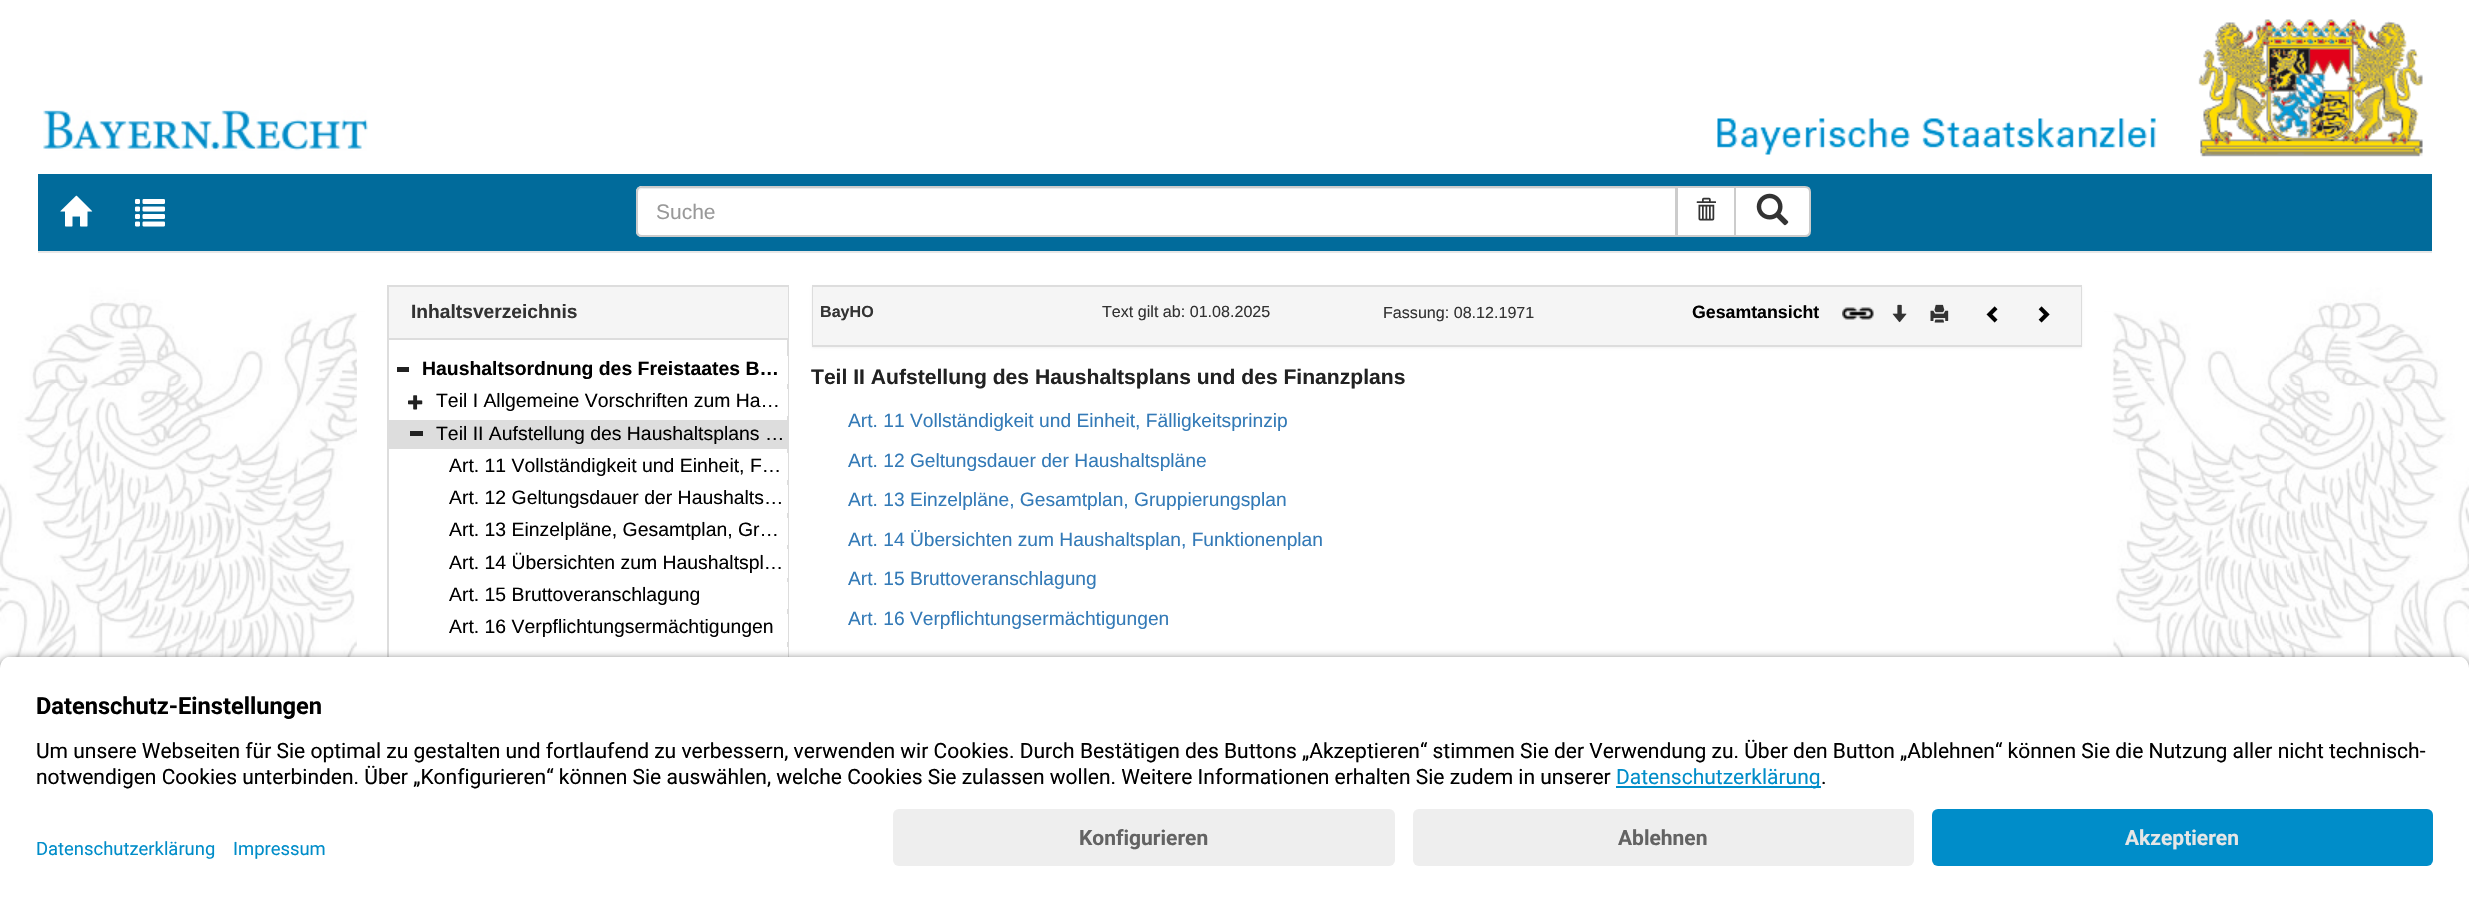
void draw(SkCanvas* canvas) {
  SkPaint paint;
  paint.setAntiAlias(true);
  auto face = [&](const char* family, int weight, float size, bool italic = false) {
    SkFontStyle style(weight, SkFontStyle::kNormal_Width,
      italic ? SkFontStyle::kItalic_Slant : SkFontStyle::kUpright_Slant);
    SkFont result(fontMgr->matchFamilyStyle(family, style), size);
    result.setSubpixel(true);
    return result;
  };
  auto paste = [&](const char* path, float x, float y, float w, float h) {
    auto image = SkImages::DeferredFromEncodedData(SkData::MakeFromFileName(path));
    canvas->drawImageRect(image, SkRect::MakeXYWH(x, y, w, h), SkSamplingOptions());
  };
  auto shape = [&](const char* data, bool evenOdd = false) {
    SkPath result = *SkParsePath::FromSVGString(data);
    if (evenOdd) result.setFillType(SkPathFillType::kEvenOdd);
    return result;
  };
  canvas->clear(0xffffffff);
  paste("img/1.png", 0, 174, 2469, 494);
  paint.setColor(0xff016b9b);
  canvas->drawRect(SkRect::MakeXYWH(38, 174, 2394, 77), paint);
  paint.setColor(0xffe7e7e7);
  canvas->drawRect(SkRect::MakeXYWH(38, 251, 2394, 2), paint);
  paste("img/2.png", 43, 110, 325, 41);
  paste("img/3.png", 1717, 19, 706, 138);
  paste("img/4.png", 60, 195, 33, 32);
  paste("img/5.png", 135, 199, 30, 28);
  paint.setColor(0xffffffff);
  canvas->drawRect(SkRect::MakeXYWH(1677, 187, 58, 49), paint);
  paint.setStroke(true);
  paint.setStrokeWidth(2);
  paint.setColor(0xffcccccc);
  canvas->drawRect(SkRect::MakeXYWH(1677, 187, 58, 49), paint);
  paint.setStroke(false);
  paint.setColor(0xffffffff);
  canvas->drawPath(shape("M642 186H1677V237H642C638.5 237 636 234.5 636 231V192C636 188.5 638.5 186 642 186Z"), paint);
  paint.setColor(0xffececec);
  canvas->drawPath(shape("M642 189H1676V188H643C640 188 638 191 638 194C638 191 640 189 642 189Z"), paint);
  paint.setStroke(true);
  paint.setColor(0xffcccccc);
  canvas->drawPath(shape("M642 187H1676V236H642C639 236 637 234 637 231V192C637 189 639 187 642 187Z"), paint);
  paste("img/6.png", 1696, 197, 20, 24);
  paint.setStroke(false);
  paint.setColor(0xffffffff);
  canvas->drawPath(shape("M1735 187H1805C1808 187 1810 189 1810 192V231C1810 234 1808 236 1805 236H1735Z"), paint);
  paint.setStroke(true);
  paint.setColor(0xffcccccc);
  canvas->drawPath(shape("M1735 187H1805C1808 187 1810 189 1810 192V231C1810 234 1808 236 1805 236H1735Z"), paint);
  paste("img/7.png", 1756, 193, 33, 33);
  paint.setStroke(false);
  paint.setColor(0xffffffff);
  canvas->drawRect(SkRect::MakeXYWH(357, 312, 1755, 336), paint);
  paint.setStroke(true);
  paint.setColor(0xffdddddd);
  canvas->drawRect(SkRect::MakeXYWH(388, 286, 400, 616), paint);
  paint.setStroke(false);
  {
    const struct { float x, y, w, h; SkColor color; } items[] = {
      {389, 287, 399, 51, 0xfff5f5f5},
      {389, 338, 399, 2, 0xffdddddd},
      {787, 356, 1, 28, 0xffffffff},
      {397, 367, 12, 5, 0xff222222},
      {787, 389, 1, 27, 0xffffffff},
    };
    for (auto [x, y, w, h, color] : items) {
      paint.setColor(color);
      canvas->drawRect(SkRect::MakeXYWH(x, y, w, h), paint);
    }
  }
  paste("img/8.png", 408, 395, 15, 15);
  {
    const struct { float x, y, w, h; SkColor color; } items[] = {
      {389, 420, 398, 29, 0xffdddddd},
      {410, 431, 13, 5, 0xff222222},
      {787, 453, 1, 27, 0xffffffff},
      {787, 485, 1, 28, 0xffffffff},
      {787, 518, 1, 27, 0xffffffff},
      {787, 549, 1, 29, 0xffffffff},
      {787, 582, 1, 27, 0xffffffff},
      {787, 614, 1, 28, 0xffffffff},
      {787, 647, 1, 10, 0xffffffff},
    };
    for (auto [x, y, w, h, color] : items) {
      paint.setColor(color);
      canvas->drawRect(SkRect::MakeXYWH(x, y, w, h), paint);
    }
  }
  paint.setColor(0x0d000000);
  paint.setMaskFilter(SkMaskFilter::MakeBlur(kNormal_SkBlurStyle, 1));
  canvas->drawRect(SkRect::MakeXYWH(812, 287, 1270, 61), paint);
  paint.setMaskFilter(nullptr);
  paint.setStroke(true);
  paint.setColor(0xffdddddd);
  canvas->drawRect(SkRect::MakeXYWH(813, 286, 1268, 60), paint);
  paint.setStroke(false);
  paint.setColor(0xfff5f5f5);
  canvas->drawRect(SkRect::MakeXYWH(813, 287, 1268, 58), paint);
  paste("img/9.png", 1842, 307, 32, 13);
  paste("img/10.png", 1892, 304, 15, 19);
  paste("img/11.png", 1930, 304, 19, 19);
  paste("img/12.png", 1986, 306, 12, 17);
  paste("img/13.png", 2038, 306, 12, 17);
  paint.setColor(0xcc000000);
  paint.setMaskFilter(SkMaskFilter::MakeBlur(kNormal_SkBlurStyle, 5));
  canvas->drawRoundRect(SkRect::MakeXYWH(0, 660, 2469, 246), 12, 12, paint);
  paint.setMaskFilter(nullptr);
  canvas->save();
  canvas->clipPath(shape("M12 656H2457C2463.5 656 2469 661.5 2469 668V797H0V668C0 661.5 5.5 656 12 656Z"), true);
  paint.setColor(0xffffffff);
  canvas->drawRect(SkRect::MakeXYWH(0, 657, 2469, 140), paint);
  canvas->restore();
  paint.setColor(0xff008dc9);
  canvas->drawRect(SkRect::MakeXYWH(1616, 786, 205, 2), paint);
  paint.setColor(0xffffffff);
  canvas->drawRect(SkRect::MakeXYWH(0, 797, 2469, 104), paint);
  paint.setColor(0xffeeeeee);
  canvas->drawRoundRect(SkRect::MakeXYWH(893, 809, 502, 57), 6, 6, paint);
  canvas->drawRoundRect(SkRect::MakeXYWH(1413, 809, 501, 57), 6, 6, paint);
  paint.setColor(0xff008dc9);
  canvas->drawRoundRect(SkRect::MakeXYWH(1932, 809, 501, 57), 6, 6, paint);
  auto f0 = face("Liberation Sans", 400, 21);
  paint.setColor(0xff999999);
  canvas->drawString("Suche", 656, 219, f0, paint);
  auto f1 = face("Liberation Sans", 700, 19.2f);
  paint.setColor(0xff333333);
  canvas->drawString("Inhaltsverzeichnis", 411, 318, f1, paint);
  auto f2 = face("Liberation Sans", 700, 19.4f);
  paint.setColor(0xff000000);
  canvas->drawString("Haushaltsordnung des Freistaates B…", 422, 375, f2, paint);
  auto f3 = face("Liberation Sans", 400, 19.4f);
  {
    const struct { const char* s; float x, y; } items[] = {
      {"Teil I Allgemeine Vorschriften zum Ha…", 436, 407},
      {"Teil II Aufstellung des Haushaltsplans …", 436, 440},
      {"Art. 11 Vollständigkeit und Einheit, F…", 449, 472},
      {"Art. 12 Geltungsdauer der Haushalts…", 449, 504},
      {"Art. 13 Einzelpläne, Gesamtplan, Gr…", 449, 536},
      {"Art. 14 Übersichten zum Haushaltspl…", 449, 569},
      {"Art. 15 Bruttoveranschlagung", 449, 601},
      {"Art. 16 Verpflichtungsermächtigungen", 449, 633},
    };
    for (auto [s, x, y] : items) {
      canvas->drawString(s, x, y, f3, paint);
    }
  }
  auto f4 = face("Liberation Sans", 700, 16.1f);
  paint.setColor(0xff333333);
  canvas->drawString("BayHO", 820, 317, f4, paint);
  auto f5 = face("Liberation Sans", 400, 16.1f);
  canvas->drawString("Text gilt ab: 01.08.2025", 1102, 317, f5, paint);
  canvas->drawString("Fassung: 08.12.1971", 1383, 318, f5, paint);
  auto f6 = face("Liberation Sans", 700, 17.75f);
  paint.setColor(0xff000000);
  canvas->drawString("Gesamtansicht", 1692, 318, f6, paint);
  auto f7 = face("Liberation Sans", 700, 21.1f);
  paint.setColor(0xff222222);
  canvas->drawString("Teil II Aufstellung des Haushaltsplans und des Finanzplans", 811, 384, f7, paint);
  auto f8 = face("Liberation Sans", 400, 19.2f);
  paint.setColor(0xff337ab7);
  {
    const struct { const char* s; float x, y; } items[] = {
      {"Art. 11 Vollständigkeit und Einheit, Fälligkeitsprinzip", 848, 427},
      {"Art. 12 Geltungsdauer der Haushaltspläne", 848, 467},
      {"Art. 13 Einzelpläne, Gesamtplan, Gruppierungsplan", 848, 506},
      {"Art. 14 Übersichten zum Haushaltsplan, Funktionenplan", 848, 546},
      {"Art. 15 Bruttoveranschlagung", 848, 585},
      {"Art. 16 Verpflichtungsermächtigungen", 848, 625},
    };
    for (auto [s, x, y] : items) {
      canvas->drawString(s, x, y, f8, paint);
    }
  }
  auto f9 = face("Roboto", 700, 23.6f);
  paint.setColor(0xff000000);
  canvas->drawString("Datenschutz-Einstellungen", 36, 714, f9, paint);
  auto f10 = face("Roboto", 400, 21);
  canvas->drawString("Um unsere Webseiten für Sie optimal zu gestalten und fortlaufend zu verbessern, verwenden wir Cookies. Durch Bestätigen des Buttons „Akzeptieren“ stimmen Sie der Verwendung zu. Über den Button „Ablehnen“ können Sie die Nutzung aller nicht technisch-", 36, 758, f10, paint);
  canvas->drawString("notwendigen Cookies unterbinden. Über „Konfigurieren“ können Sie auswählen, welche Cookies Sie zulassen wollen. Weitere Informationen erhalten Sie zudem in unserer", 36, 784, f10, paint);
  paint.setColor(0xff008dc9);
  canvas->drawString("Datenschutzerklärung", 1616, 784, f10, paint);
  paint.setColor(0xff000000);
  canvas->drawString(".", 1821, 784, f10, paint);
  auto f11 = face("Roboto", 400, 18.4f);
  paint.setColor(0xff008dc9);
  canvas->drawString("Datenschutzerklärung", 36, 855, f11, paint);
  canvas->drawString("Impressum", 233, 855, f11, paint);
  auto f12 = face("Roboto", 700, 21);
  paint.setColor(0xff636363);
  canvas->drawString("Konfigurieren", 1079, 845, f12, paint);
  canvas->drawString("Ablehnen", 1618, 845, f12, paint);
  paint.setColor(0xffe6e6e6);
  canvas->drawString("Akzeptieren", 2125, 845, f12, paint);
}
